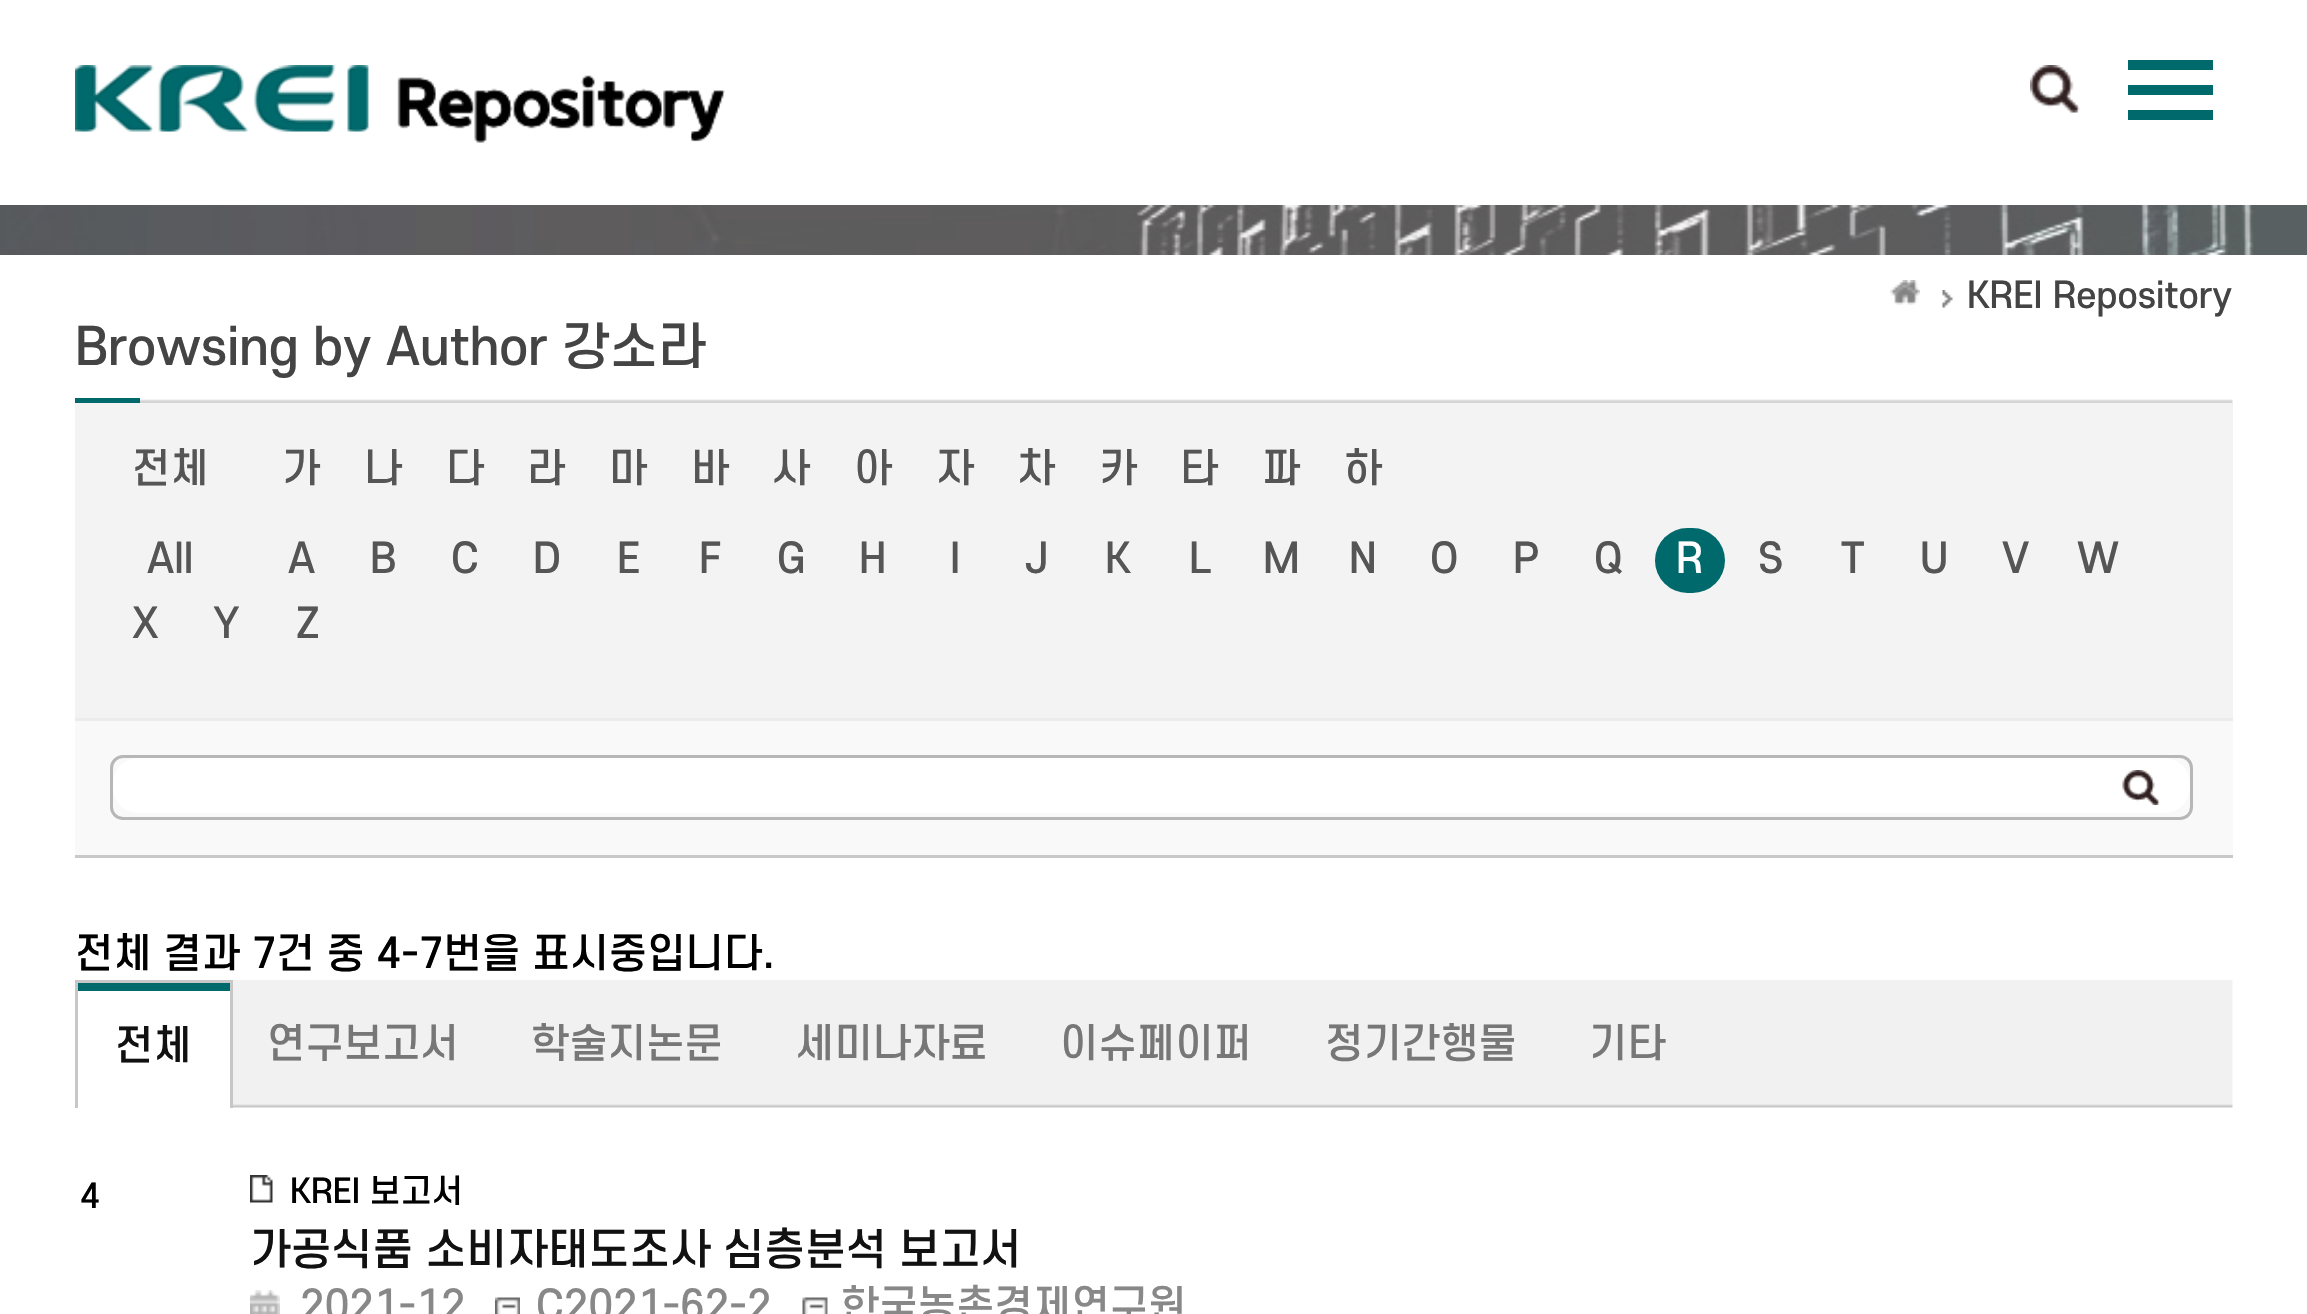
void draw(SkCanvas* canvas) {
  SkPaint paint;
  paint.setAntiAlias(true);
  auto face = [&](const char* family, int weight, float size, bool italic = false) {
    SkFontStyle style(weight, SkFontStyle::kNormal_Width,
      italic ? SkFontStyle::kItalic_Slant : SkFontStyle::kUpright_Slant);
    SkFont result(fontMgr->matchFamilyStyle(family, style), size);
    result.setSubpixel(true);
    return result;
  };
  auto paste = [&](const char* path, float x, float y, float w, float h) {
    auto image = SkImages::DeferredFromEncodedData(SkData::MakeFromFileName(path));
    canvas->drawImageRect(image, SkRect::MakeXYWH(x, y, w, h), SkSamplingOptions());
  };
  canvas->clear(0xffffffff);
  paste("img/1.png", 75, 65, 650, 78);
  paste("img/2.png", 2030, 65, 50, 48);
  {
    const struct { float x, y, w, h; SkColor color; } items[] = {
      {2128, 60, 85, 10, 0xff00696c},
      {2128, 85, 85, 10, 0xff00696c},
      {2128, 110, 85, 10, 0xff00696c},
    };
    for (auto [x, y, w, h, color] : items) {
      paint.setColor(color);
      canvas->drawRect(SkRect::MakeXYWH(x, y, w, h), paint);
    }
  }
  paste("img/3.png", 0, 205, 2307, 50);
  paste("img/4.png", 1890, 280, 30, 25);
  paste("img/5.png", 1942, 290, 11, 18);
  paste("img/6.png", 140, 399, 2093, 4);
  {
    const struct { float x, y, w, h; SkColor color; } items[] = {
      {75, 398, 65, 5, 0xff00696c},
      {75, 855, 2158, 3, 0xffc9c9c9},
      {75, 403, 2158, 315, 0xfff3f3f3},
    };
    for (auto [x, y, w, h, color] : items) {
      paint.setColor(color);
      canvas->drawRect(SkRect::MakeXYWH(x, y, w, h), paint);
    }
  }
  paint.setColor(0xff00696c);
  canvas->drawRoundRect(SkRect::MakeXYWH(1655, 528, 70, 65), 32.5f, 32.5f, paint);
  paint.setColor(0xfff9f9f9);
  canvas->drawRect(SkRect::MakeXYWH(75, 721, 2158, 134), paint);
  paint.setColor(0xffececec);
  canvas->drawRect(SkRect::MakeXYWH(75, 718, 2158, 3), paint);
  paint.setStroke(true);
  paint.setStrokeWidth(3);
  paint.setColor(0xffb7b7b7);
  canvas->drawRoundRect(SkRect::MakeXYWH(111.5f, 756.5f, 2080, 62), 11.5f, 11.5f, paint);
  paint.setStroke(false);
  paint.setColor(0xffffffff);
  canvas->drawRoundRect(SkRect::MakeXYWH(113, 758, 2077, 55), 25, 25, paint);
  paste("img/7.png", 2122, 770, 38, 35);
  paste("img/8.png", 233, 980, 2000, 128);
  {
    const struct { float x, y, w, h; SkColor color; } items[] = {
      {75, 980, 158, 3, 0xffc7c7c7},
      {230, 980, 3, 128, 0xffc7c7c7},
      {75, 980, 3, 128, 0xffc7c7c7},
      {78, 983, 152, 8, 0xff00696c},
    };
    for (auto [x, y, w, h, color] : items) {
      paint.setColor(color);
      canvas->drawRect(SkRect::MakeXYWH(x, y, w, h), paint);
    }
  }
  paste("img/9.png", 250, 1175, 23, 28);
  paste("img/10.png", 250, 1290, 30, 24);
  paste("img/11.png", 495, 1297, 25, 17);
  paste("img/12.png", 802, 1297, 26, 17);
  auto f0 = face("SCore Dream", 500, 35);
  paint.setColor(0xff444444);
  canvas->drawString("KREI Repository", 1967, 308, f0, paint);
  auto f1 = face("SCore Dream", 500, 50);
  canvas->drawString("Browsing by Author 강소라", 75, 365, f1, paint);
  auto f2 = face("SCore Dream", 500, 40);
  paint.setColor(0xff555555);
  {
    const struct { const char* s; float x, y; } items[] = {
      {"전체", 132, 483},
      {"가", 282, 483},
      {"나", 364, 483},
      {"다", 446, 483},
      {"라", 527, 483},
      {"마", 609, 483},
      {"바", 691, 483},
      {"사", 772, 483},
      {"아", 854, 483},
      {"자", 936, 483},
      {"차", 1017, 483},
      {"카", 1099, 483},
      {"타", 1180, 483},
      {"파", 1262, 483},
      {"하", 1344, 483},
      {"All", 147, 573},
      {"A", 288, 573},
      {"B", 370, 573},
      {"C", 451, 573},
      {"D", 533, 573},
      {"E", 617, 573},
      {"F", 699, 573},
      {"G", 777, 573},
      {"H", 859, 573},
      {"I", 950, 573},
      {"J", 1025, 573},
      {"K", 1105, 573},
      {"L", 1189, 573},
      {"M", 1263, 573},
      {"N", 1349, 573},
      {"O", 1430, 573},
      {"P", 1513, 573},
      {"Q", 1594, 573},
    };
    for (auto [s, x, y] : items) {
      canvas->drawString(s, x, y, f2, paint);
    }
  }
  paint.setColor(0xffffffff);
  canvas->drawString("R", 1676, 573, f2, paint);
  paint.setColor(0xff555555);
  {
    const struct { const char* s; float x, y; } items[] = {
      {"S", 1758, 573},
      {"T", 1841, 573},
      {"U", 1920, 573},
      {"V", 2002, 573},
      {"W", 2077, 573},
      {"X", 132, 638},
      {"Y", 213, 638},
      {"Z", 296, 638},
    };
    for (auto [s, x, y] : items) {
      canvas->drawString(s, x, y, f2, paint);
    }
  }
  paint.setColor(0xff000000);
  canvas->drawString("전체 결과 7건 중 4-7번을 표시중입니다.", 75, 968, f2, paint);
  paint.setColor(0xff111111);
  canvas->drawString("전체", 115, 1060, f2, paint);
  paint.setColor(0xff777777);
  {
    const struct { const char* s; float x, y; } items[] = {
      {"연구보고서", 267, 1058},
      {"학술지논문", 531, 1058},
      {"세미나자료", 796, 1058},
      {"이슈페이퍼", 1060, 1058},
      {"정기간행물", 1325, 1058},
      {"기타", 1589, 1058},
    };
    for (auto [s, x, y] : items) {
      canvas->drawString(s, x, y, f2, paint);
    }
  }
  auto f3 = face("SCore Dream", 500, 32.5f);
  paint.setColor(0xff000000);
  canvas->drawString("4", 80, 1208, f3, paint);
  canvas->drawString("KREI 보고서", 290, 1203, f3, paint);
  auto f4 = face("SCore Dream", 500, 42.5f);
  paint.setColor(0xff111111);
  canvas->drawString("가공식품 소비자태도조사 심층분석 보고서", 250, 1265, f4, paint);
  paint.setColor(0xff888888);
  {
    const struct { const char* s; float x, y; } items[] = {
      {"2021-12", 300, 1320},
      {"C2021-62-2", 536, 1320},
      {"한국농촌경제연구원", 841, 1320},
    };
    for (auto [s, x, y] : items) {
      canvas->drawString(s, x, y, f2, paint);
    }
  }
}
